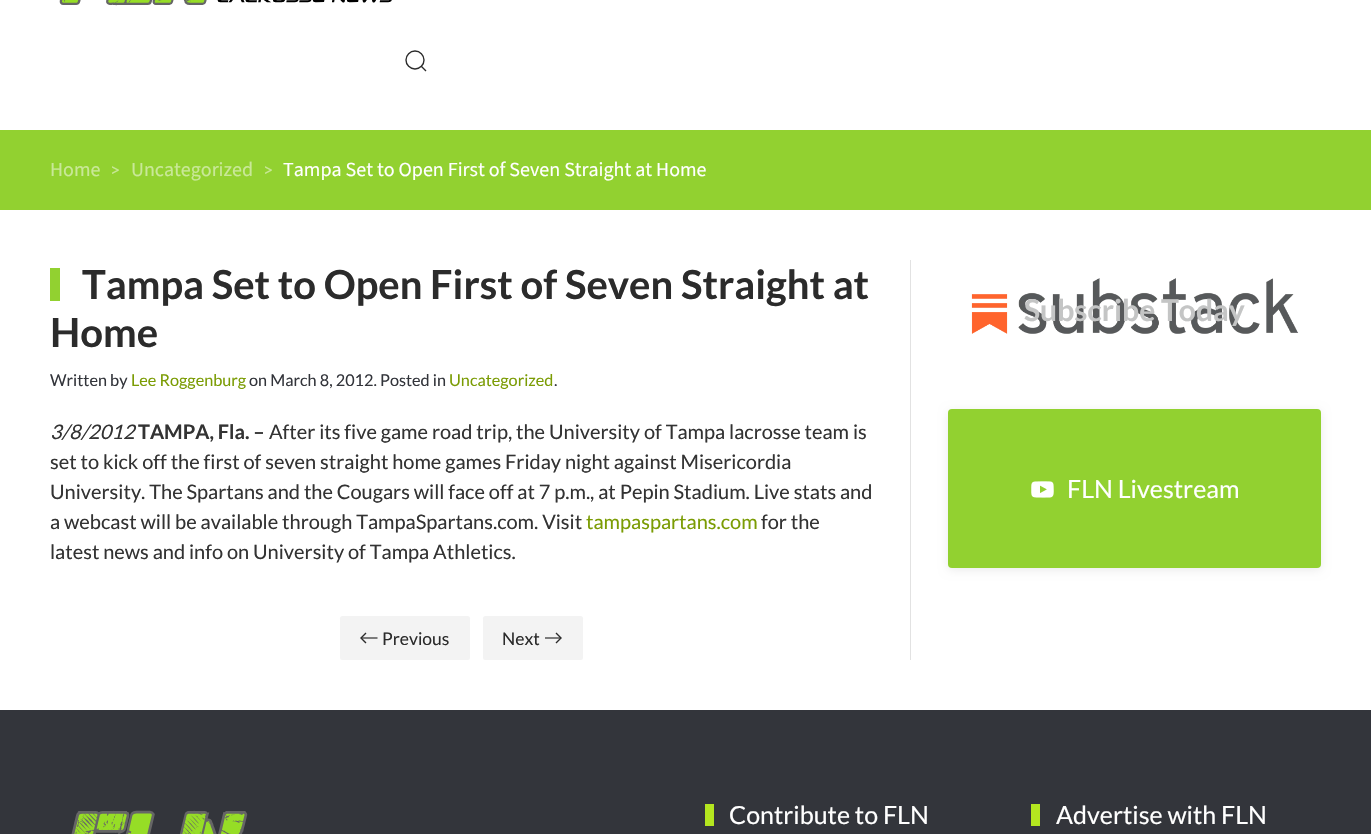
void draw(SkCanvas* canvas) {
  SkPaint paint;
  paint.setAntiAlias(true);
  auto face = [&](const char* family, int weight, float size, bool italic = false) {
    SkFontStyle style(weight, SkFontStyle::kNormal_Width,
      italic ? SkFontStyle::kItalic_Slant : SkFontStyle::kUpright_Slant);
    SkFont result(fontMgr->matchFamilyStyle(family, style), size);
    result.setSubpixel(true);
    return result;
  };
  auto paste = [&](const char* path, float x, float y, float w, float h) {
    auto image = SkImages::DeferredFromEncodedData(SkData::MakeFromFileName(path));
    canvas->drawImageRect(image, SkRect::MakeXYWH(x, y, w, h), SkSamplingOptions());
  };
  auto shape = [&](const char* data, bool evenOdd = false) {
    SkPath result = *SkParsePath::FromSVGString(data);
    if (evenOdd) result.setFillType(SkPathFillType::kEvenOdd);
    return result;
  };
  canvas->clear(0xff92d130);
  paint.setColor(0xffffffff);
  canvas->drawRect(SkRect::MakeXYWH(0, 0, 1371, 130), paint);
  paste("img/1.png", 59, 0, 333, 6);
  paint.setStroke(true);
  paint.setStrokeWidth(1.4f);
  paint.setColor(0xff2b2b2b);
  canvas->drawCircle(415, 60, 9, paint);
  canvas->drawPath(shape("M421 66L426 71Z"), paint);
  paint.setStroke(false);
  paint.setColor(0xffffffff);
  canvas->drawRect(SkRect::MakeXYWH(0, 210, 1371, 500), paint);
  paint.setColor(0xff92d130);
  canvas->drawRect(SkRect::MakeXYWH(50, 268, 10, 33), paint);
  paint.setColor(0xfff3f3f3);
  canvas->drawRoundRect(SkRect::MakeXYWH(340, 616, 130, 44), 2.5f, 2.5f, paint);
  paint.setStroke(true);
  paint.setColor(0xff2b2b2b);
  canvas->drawPath(shape("M366 643L361 638L366 633"), paint);
  paint.setStrokeWidth(1.2f);
  canvas->drawPath(shape("M361 638H377.5"), paint);
  paint.setStroke(false);
  paint.setColor(0xfff3f3f3);
  canvas->drawRoundRect(SkRect::MakeXYWH(483, 616, 100, 44), 2.5f, 2.5f, paint);
  paint.setStroke(true);
  paint.setStrokeWidth(1.4f);
  paint.setColor(0xff2b2b2b);
  canvas->drawPath(shape("M556 633L561 638L556 643"), paint);
  paint.setStrokeWidth(1.2f);
  canvas->drawPath(shape("M561 638H545"), paint);
  paint.setStroke(false);
  paint.setColor(0xffe2e2e2);
  canvas->drawRect(SkRect::MakeXYWH(910, 260, 1, 400), paint);
  paste("img/2.png", 971, 278, 328, 56);
  paint.setColor(0x14000000);
  paint.setMaskFilter(SkMaskFilter::MakeBlur(kNormal_SkBlurStyle, 5));
  canvas->drawRoundRect(SkRect::MakeXYWH(948, 411, 373, 159), 4, 4, paint);
  paint.setMaskFilter(nullptr);
  paint.setColor(0xff92d130);
  canvas->drawRoundRect(SkRect::MakeXYWH(948, 409, 373, 159), 4, 4, paint);
  paste("img/3.png", 1031, 481, 23, 17);
  paint.setColor(0xff33353b);
  canvas->drawRect(SkRect::MakeXYWH(0, 710, 1371, 124), paint);
  paste("img/4.png", 71, 810, 177, 24);
  paint.setColor(0xffb4e61f);
  canvas->drawRect(SkRect::MakeXYWH(705, 804, 9, 22), paint);
  canvas->drawRect(SkRect::MakeXYWH(1031, 804, 9, 22), paint);
  auto f0 = face("Source Sans 3", 200, 20);
  paint.setColor(0xffc9e898);
  canvas->drawString("Home", 50, 176, f0, paint);
  auto f1 = face("Lato", 400, 17.5f);
  canvas->drawString(">", 110, 176, f1, paint);
  canvas->drawString("Uncategorized", 131, 176, f0, paint);
  canvas->drawString(">", 263, 176, f1, paint);
  paint.setColor(0xffffffff);
  canvas->drawString("Tampa Set to Open First of Seven Straight at Home", 283, 176, f0, paint);
  auto f2 = face("Lato", 700, 40);
  paint.setColor(0xff2b2b2b);
  canvas->drawString("Tampa Set to Open First of Seven Straight at", 82, 299, f2, paint);
  canvas->drawString("Home", 50, 347, f2, paint);
  auto f3 = face("Lato", 400, 16.25f);
  paint.setColor(0xff33353b);
  canvas->drawString("Written by", 50, 386, f3, paint);
  paint.setColor(0xff7b9c04);
  canvas->drawString("Lee Roggenburg", 131, 386, f3, paint);
  paint.setColor(0xff33353b);
  canvas->drawString("on March 8, 2012. Posted in", 249, 386, f3, paint);
  paint.setColor(0xff7b9c04);
  canvas->drawString("Uncategorized", 449, 386, f3, paint);
  paint.setColor(0xff33353b);
  canvas->drawString(".", 554, 386, f3, paint);
  auto f4 = face("Lato", 400, 20, true);
  paint.setColor(0xff333333);
  canvas->drawString("3/8/2012", 50, 439, f4, paint);
  auto f5 = face("Lato", 700, 20);
  canvas->drawString("TAMPA, Fla. –", 138, 439, f5, paint);
  auto f6 = face("Lato", 400, 20);
  {
    const struct { const char* s; float x, y; } items[] = {
      {"After its five game road trip, the University of Tampa lacrosse team is", 269, 439},
      {"set to kick off the first of seven straight home games Friday night against Misericordia", 50, 469},
      {"University. The Spartans and the Cougars will face off at 7 p.m., at Pepin Stadium. Live stats and", 50, 499},
      {"a webcast will be available through TampaSpartans.com. Visit", 50, 529},
    };
    for (auto [s, x, y] : items) {
      canvas->drawString(s, x, y, f6, paint);
    }
  }
  paint.setColor(0xff7b9c04);
  canvas->drawString("tampaspartans.com", 586, 529, f6, paint);
  paint.setColor(0xff333333);
  canvas->drawString("for the", 761, 529, f6, paint);
  canvas->drawString("latest news and info on University of Tampa Athletics.", 50, 559, f6, paint);
  paint.setColor(0xff2b2b2b);
  canvas->drawString("Previous", 382, 645, f1, paint);
  canvas->drawString("Next", 502, 645, f1, paint);
  auto f7 = face("Lato", 700, 30);
  paint.setColor(0xffc4c5c5);
  canvas->drawString("Subscribe Today", 1024, 321, f7, paint);
  auto f8 = face("Lato", 400, 25);
  paint.setColor(0xffffffff);
  {
    const struct { const char* s; float x, y; } items[] = {
      {"FLN Livestream", 1067, 498},
      {"Contribute to FLN", 729, 824},
      {"Advertise with FLN", 1056, 824},
    };
    for (auto [s, x, y] : items) {
      canvas->drawString(s, x, y, f8, paint);
    }
  }
}
